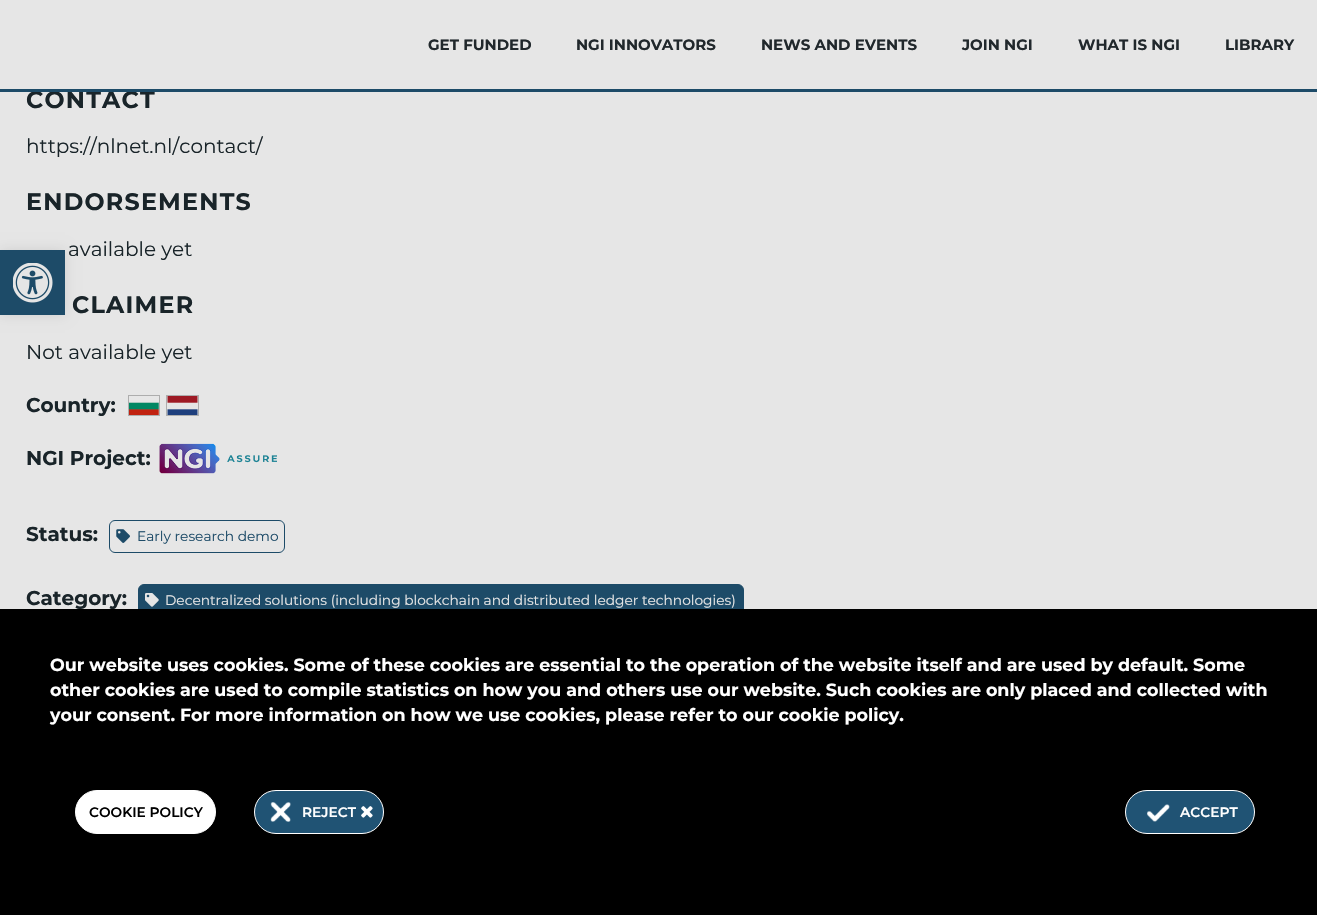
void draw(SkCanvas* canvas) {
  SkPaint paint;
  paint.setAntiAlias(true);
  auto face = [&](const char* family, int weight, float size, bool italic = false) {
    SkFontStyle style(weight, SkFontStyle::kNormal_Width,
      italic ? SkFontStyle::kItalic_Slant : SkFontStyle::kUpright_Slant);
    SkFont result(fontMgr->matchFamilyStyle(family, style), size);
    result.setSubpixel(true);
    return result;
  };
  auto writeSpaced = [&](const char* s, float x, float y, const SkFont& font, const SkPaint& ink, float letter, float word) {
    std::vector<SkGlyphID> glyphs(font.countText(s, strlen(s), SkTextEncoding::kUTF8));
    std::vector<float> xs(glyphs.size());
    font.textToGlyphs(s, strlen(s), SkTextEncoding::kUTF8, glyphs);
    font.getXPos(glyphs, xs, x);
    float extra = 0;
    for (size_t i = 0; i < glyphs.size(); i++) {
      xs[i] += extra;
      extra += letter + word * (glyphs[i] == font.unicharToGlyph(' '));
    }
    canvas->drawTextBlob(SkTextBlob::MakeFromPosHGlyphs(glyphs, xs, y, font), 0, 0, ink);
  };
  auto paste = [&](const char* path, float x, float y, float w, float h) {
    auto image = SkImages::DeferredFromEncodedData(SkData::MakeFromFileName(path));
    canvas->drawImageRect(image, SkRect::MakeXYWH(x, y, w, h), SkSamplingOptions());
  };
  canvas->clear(0xffe6e6e6);
  paste("img/1.png", 129, 402, 30, 13);
  paint.setStroke(true);
  paint.setStrokeWidth(1);
  paint.setColor(0xffadadad);
  canvas->drawRect(SkRect::MakeXYWH(128.5f, 395.5f, 31, 20), paint);
  paste("img/2.png", 167, 396, 31, 19);
  canvas->drawRect(SkRect::MakeXYWH(166.5f, 395.5f, 32, 20), paint);
  paste("img/3.png", 159, 443, 118, 31);
  paint.setColor(0xff1d4b68);
  canvas->drawRoundRect(SkRect::MakeXYWH(109.5f, 520.5f, 175, 32), 5.5f, 5.5f, paint);
  paste("img/4.png", 116, 529, 14, 14);
  paint.setStroke(false);
  canvas->drawRoundRect(SkRect::MakeXYWH(138.5f, 584.5f, 605, 31), 5.5f, 5.5f, paint);
  paint.setStroke(true);
  canvas->drawRoundRect(SkRect::MakeXYWH(138.5f, 584.5f, 605, 31), 5.5f, 5.5f, paint);
  paste("img/5.png", 145, 593, 14, 14);
  paint.setStroke(false);
  paint.setColor(0x1a000000);
  paint.setMaskFilter(SkMaskFilter::MakeBlur(kNormal_SkBlurStyle, 6));
  canvas->drawRect(SkRect::MakeXYWH(0, 250, 65, 65), paint);
  paint.setMaskFilter(nullptr);
  paint.setColor(0xff1d4b68);
  canvas->drawRect(SkRect::MakeXYWH(0, 250, 65, 65), paint);
  paste("img/6.png", 13, 263, 40, 40);
  paint.setColor(0xff000000);
  canvas->drawRect(SkRect::MakeXYWH(0, 609, 1317, 306), paint);
  paint.setColor(0xffffffff);
  canvas->drawRoundRect(SkRect::MakeXYWH(75.5f, 790.5f, 140, 43), 21.5f, 21.5f, paint);
  paint.setStroke(true);
  canvas->drawRoundRect(SkRect::MakeXYWH(75.5f, 790.5f, 140, 43), 21.5f, 21.5f, paint);
  paint.setStroke(false);
  paint.setColor(0xff205374);
  canvas->drawRoundRect(SkRect::MakeXYWH(254.5f, 790.5f, 129, 43), 21.5f, 21.5f, paint);
  paint.setStroke(true);
  paint.setColor(0xffffffff);
  canvas->drawRoundRect(SkRect::MakeXYWH(254.5f, 790.5f, 129, 43), 21.5f, 21.5f, paint);
  paste("img/7.png", 270, 802, 21, 20);
  paste("img/8.png", 361, 806, 12, 12);
  paint.setStroke(false);
  paint.setColor(0xff205374);
  canvas->drawRoundRect(SkRect::MakeXYWH(1125.5f, 790.5f, 129, 43), 21.5f, 21.5f, paint);
  paint.setStroke(true);
  paint.setColor(0xffffffff);
  canvas->drawRoundRect(SkRect::MakeXYWH(1125.5f, 790.5f, 129, 43), 21.5f, 21.5f, paint);
  paste("img/9.png", 1147, 804, 23, 18);
  auto f0 = face("Montserrat", 700, 15);
  paint.setStroke(false);
  paint.setColor(0xff21282c);
  {
    const struct { const char* s; float x, y; } items[] = {
      {"GET FUNDED", 428, 50},
      {"NGI INNOVATORS", 576, 50},
      {"NEWS AND EVENTS", 761, 50},
      {"JOIN NGI", 962, 50},
      {"WHAT IS NGI", 1078, 50},
      {"LIBRARY", 1225, 50},
    };
    for (auto [s, x, y] : items) {
      canvas->drawString(s, x, y, f0, paint);
    }
  }
  auto f1 = face("Montserrat", 700, 23.75f);
  paint.setColor(0xff192429);
  writeSpaced("CONTACT", 26, 108, f1, paint, 1.25f, 0);
  paint.setColor(0xff1d4b68);
  canvas->drawRect(SkRect::MakeXYWH(0, 89, 1317, 3), paint);
  auto f2 = face("Montserrat", 400, 20);
  paint.setColor(0xff192429);
  canvas->drawString("https://nlnet.nl/contact/", 26, 153, f2, paint);
  writeSpaced("ENDORSEMENTS", 26, 210, f1, paint, 1.25f, 0);
  canvas->drawString("available yet", 68, 256, f2, paint);
  writeSpaced("CLAIMER", 72, 313, f1, paint, 1.25f, 0);
  canvas->drawString("Not available yet", 26, 359, f2, paint);
  auto f3 = face("Montserrat", 700, 20);
  {
    const struct { const char* s; float x, y; } items[] = {
      {"Country:", 26, 412},
      {"NGI Project:", 26, 465},
      {"Status:", 26, 541},
    };
    for (auto [s, x, y] : items) {
      canvas->drawString(s, x, y, f3, paint);
    }
  }
  auto f4 = face("Montserrat", 400, 13.75f);
  paint.setColor(0xff1d4b68);
  canvas->drawString("Early research demo", 137, 541, f4, paint);
  paint.setColor(0xff192429);
  canvas->drawString("Category:", 26, 605, f3, paint);
  paint.setColor(0xffe6e6e6);
  canvas->drawString("Decentralized solutions (including blockchain and distributed ledger technologies)", 165, 605, f4, paint);
  auto f5 = face("Montserrat", 700, 17.5f);
  paint.setColor(0xffffffff);
  {
    const struct { const char* s; float x, y; } items[] = {
      {"Our website uses cookies. Some of these cookies are essential to the operation of the website itself and are used by default. Some", 50, 671},
      {"other cookies are used to compile statistics on how you and others use our website. Such cookies are only placed and collected with", 50, 696},
      {"your consent. For more information on how we use cookies, please refer to our cookie policy.", 50, 721},
    };
    for (auto [s, x, y] : items) {
      canvas->drawString(s, x, y, f5, paint);
    }
  }
  auto f6 = face("Montserrat", 600, 13.75f);
  paint.setColor(0xff000000);
  canvas->drawString("COOKIE POLICY", 89, 817, f6, paint);
  paint.setColor(0xffffffff);
  canvas->drawString("REJECT", 302, 817, f6, paint);
  canvas->drawString("ACCEPT", 1180, 817, f6, paint);
}
